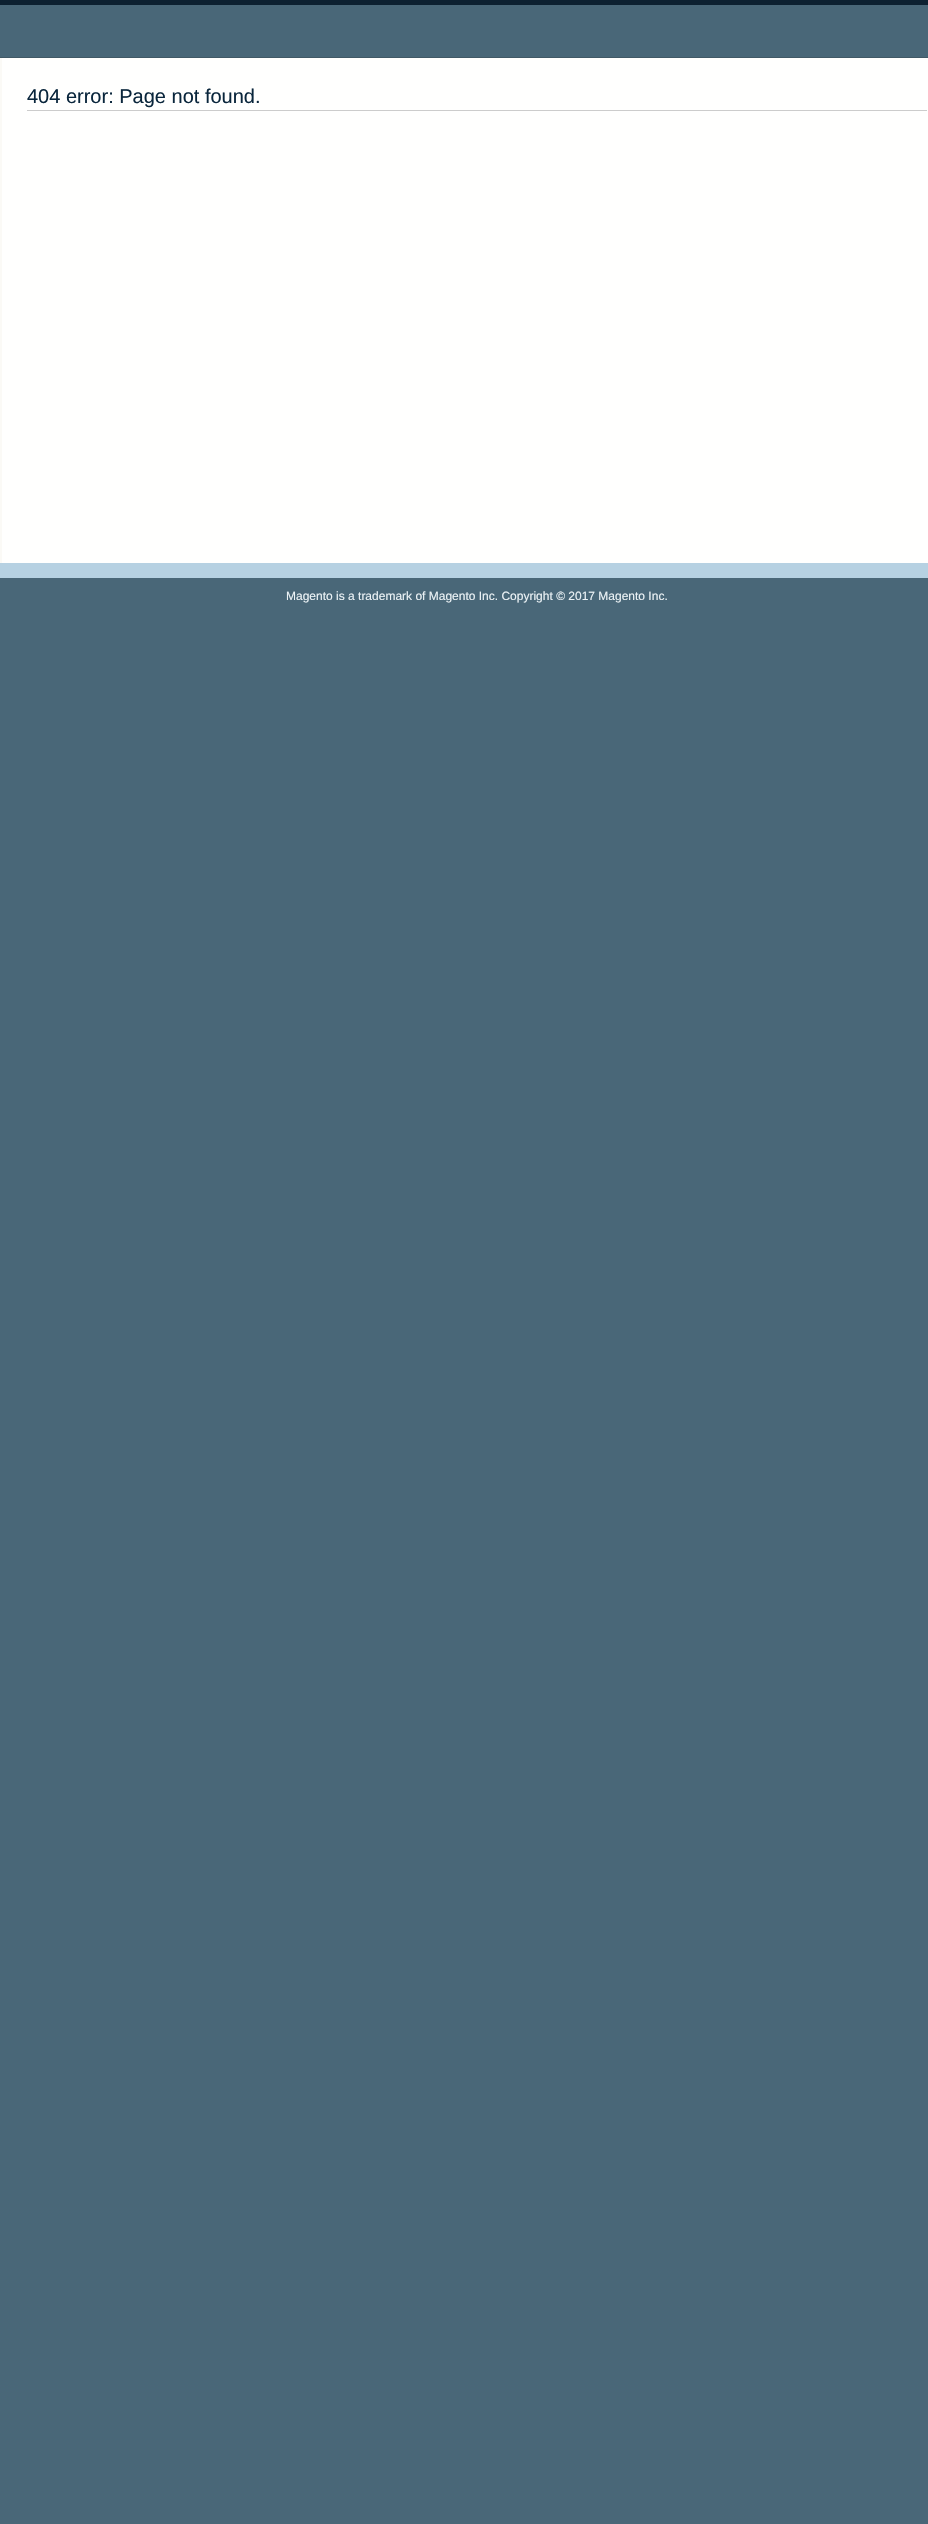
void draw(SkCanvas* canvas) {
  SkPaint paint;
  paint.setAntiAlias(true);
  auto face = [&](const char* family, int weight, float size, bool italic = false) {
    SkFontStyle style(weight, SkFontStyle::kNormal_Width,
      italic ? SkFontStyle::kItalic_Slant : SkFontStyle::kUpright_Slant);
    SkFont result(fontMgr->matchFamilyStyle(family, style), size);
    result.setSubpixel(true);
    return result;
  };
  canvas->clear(0xff496778);
  {
    const struct { float x, y, w, h; SkColor color; } items[] = {
      {0, 0, 928, 5, 0xff0d2131},
      {0, 57, 928, 1, 0xff415966},
      {0, 58, 2, 505, 0xfffbfaf6},
      {2, 58, 926, 505, 0xfffffffe},
      {27, 110, 900, 1, 0xffcccccc},
      {0, 563, 928, 15, 0xffb6d1e2},
    };
    for (auto [x, y, w, h, color] : items) {
      paint.setColor(color);
      canvas->drawRect(SkRect::MakeXYWH(x, y, w, h), paint);
    }
  }
  auto f0 = face("Liberation Sans", 400, 20);
  paint.setColor(0xff0a263c);
  canvas->drawString("404 error: Page not found.", 27, 103, f0, paint);
  auto f1 = face("Liberation Sans", 400, 12);
  paint.setColor(0xffecf3f6);
  canvas->drawString("Magento is a trademark of Magento Inc. Copyright © 2017 Magento Inc.", 286, 600, f1, paint);
}
